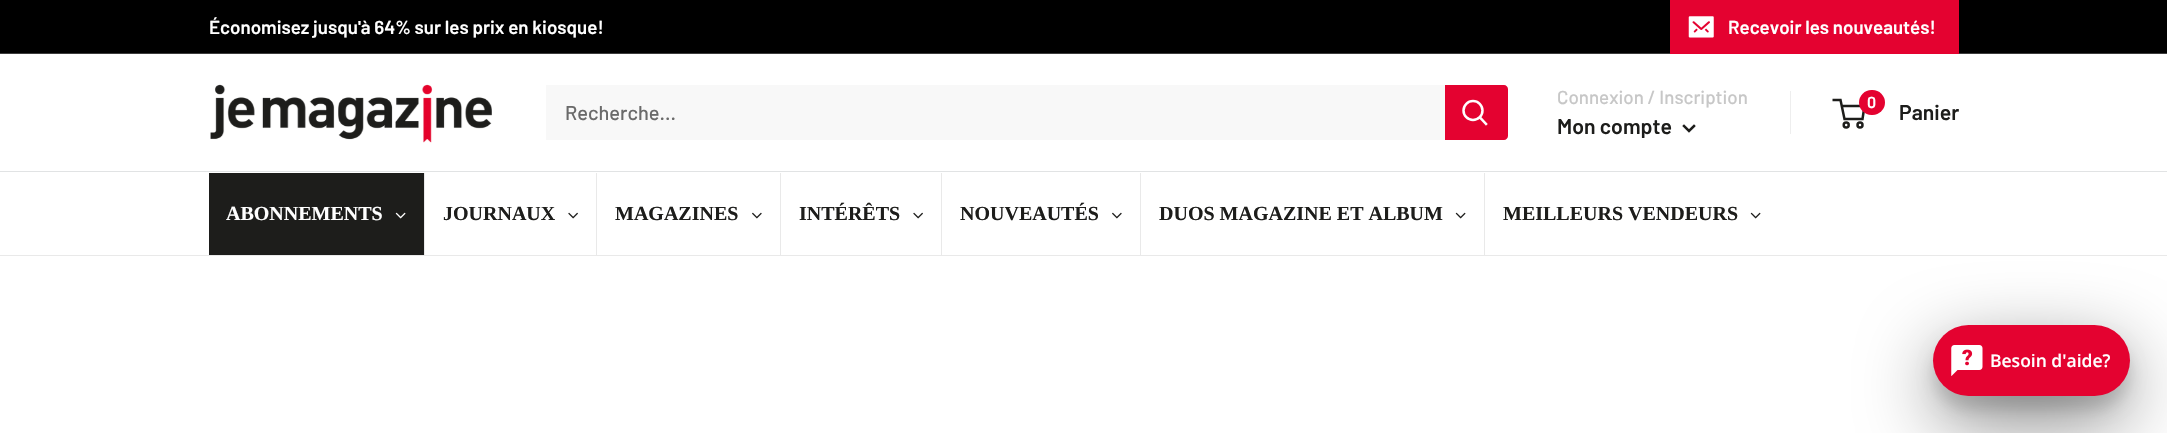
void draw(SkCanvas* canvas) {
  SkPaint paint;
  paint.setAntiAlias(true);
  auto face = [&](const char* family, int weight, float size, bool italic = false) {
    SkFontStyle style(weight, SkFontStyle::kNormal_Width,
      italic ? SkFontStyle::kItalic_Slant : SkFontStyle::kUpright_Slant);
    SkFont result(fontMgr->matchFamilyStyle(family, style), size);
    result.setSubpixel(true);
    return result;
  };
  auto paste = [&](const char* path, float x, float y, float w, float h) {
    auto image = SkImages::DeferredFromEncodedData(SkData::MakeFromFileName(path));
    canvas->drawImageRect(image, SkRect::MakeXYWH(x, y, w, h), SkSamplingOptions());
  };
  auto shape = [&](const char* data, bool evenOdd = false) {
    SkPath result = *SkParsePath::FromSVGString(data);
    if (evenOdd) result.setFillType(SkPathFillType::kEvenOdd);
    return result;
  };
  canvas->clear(0xffffffff);
  paint.setColor(0xff000000);
  canvas->drawRect(SkRect::MakeXYWH(0, 0, 2167, 53), paint);
  paint.setColor(0xff3c3c3c);
  canvas->drawRect(SkRect::MakeXYWH(0, 53, 2167, 1), paint);
  paint.setColor(0xffe40230);
  canvas->drawPath(shape("M1670 52V54H1959V1V52Z"), paint);
  canvas->drawRect(SkRect::MakeXYWH(1670, 0, 289, 52), paint);
  paste("img/1.png", 1688, 16, 26, 22);
  paste("img/2.png", 210, 84, 282, 59);
  paint.setColor(0xfff8f8f8);
  canvas->drawRect(SkRect::MakeXYWH(546, 85, 899, 55), paint);
  paint.setColor(0xffe40230);
  canvas->drawPath(shape("M1445 85H1504C1506 85 1508 87 1508 89V136C1508 138 1506 140 1504 140H1445Z"), paint);
  paint.setStroke(true);
  paint.setStrokeWidth(2.5f);
  paint.setStrokeCap(SkPaint::kSquare_Cap);
  paint.setColor(0xffffffff);
  canvas->drawPath(shape("M1486 124L1480 117.5"), paint);
  paint.setStrokeCap(SkPaint::kButt_Cap);
  canvas->drawCircle(1473, 110.5f, 9.5f, paint);
  paint.setStroke(false);
  paint.setColor(0xffeeeeee);
  canvas->drawRect(SkRect::MakeXYWH(1790, 91, 1, 43), paint);
  paint.setStroke(true);
  paint.setStrokeCap(SkPaint::kSquare_Cap);
  paint.setColor(0xff1d1d1b);
  canvas->drawPath(shape("M1694 126L1689 131L1684 126"), paint);
  paint.setStrokeCap(SkPaint::kButt_Cap);
  canvas->drawCircle(1846.2f, 125, 2.5f, paint);
  canvas->drawCircle(1860, 125, 2.5f, paint);
  canvas->drawPath(shape("M1841.5 106H1864.5L1862.5 119H1844.5L1840.5 100H1832.5"), paint);
  paint.setStroke(false);
  paint.setColor(0xffe40230);
  canvas->drawRoundRect(SkRect::MakeXYWH(1859, 90, 26, 25), 12.5f, 12.5f, paint);
  {
    const struct { float x, y, w, h; SkColor color; } items[] = {
      {0, 171, 2167, 1, 0xffe1e3e4},
      {0, 255, 2167, 1, 0xffe9e9e9},
      {209, 173, 215, 82, 0xff1d1d1b},
    };
    for (auto [x, y, w, h, color] : items) {
      paint.setColor(color);
      canvas->drawRect(SkRect::MakeXYWH(x, y, w, h), paint);
    }
  }
  paste("img/3.png", 395, 212, 11, 7);
  paint.setColor(0xffe9e9e9);
  canvas->drawRect(SkRect::MakeXYWH(424, 173, 1, 82), paint);
  paste("img/4.png", 568, 212, 10, 7);
  canvas->drawRect(SkRect::MakeXYWH(596, 173, 1, 82), paint);
  paste("img/5.png", 752, 212, 10, 7);
  canvas->drawRect(SkRect::MakeXYWH(780, 173, 1, 82), paint);
  paste("img/4.png", 913, 212, 10, 7);
  canvas->drawRect(SkRect::MakeXYWH(941, 173, 1, 82), paint);
  paste("img/5.png", 1112, 212, 10, 7);
  canvas->drawRect(SkRect::MakeXYWH(1140, 173, 1, 82), paint);
  paste("img/6.png", 1455, 212, 11, 7);
  canvas->drawRect(SkRect::MakeXYWH(1484, 173, 1, 82), paint);
  paste("img/6.png", 1750, 212, 11, 7);
  paint.setColor(0x24000000);
  paint.setMaskFilter(SkMaskFilter::MakeBlur(kNormal_SkBlurStyle, 7.5f));
  canvas->drawRoundRect(SkRect::MakeXYWH(1933, 338, 197, 71), 35.5f, 35.5f, paint);
  paint.setMaskFilter(nullptr);
  paint.setColor(0x7a000000);
  paint.setMaskFilter(SkMaskFilter::MakeBlur(kNormal_SkBlurStyle, 37.5f));
  canvas->drawRoundRect(SkRect::MakeXYWH(1933, 350, 197, 71), 35.5f, 35.5f, paint);
  paint.setMaskFilter(nullptr);
  paint.setColor(0xffe40230);
  canvas->drawRoundRect(SkRect::MakeXYWH(1933, 325, 197, 71), 35.5f, 35.5f, paint);
  paste("img/7.png", 1951, 345, 32, 31);
  auto f0 = face("Barlow", 600, 18.75f);
  paint.setColor(0xffffffff);
  canvas->drawString("Économisez jusqu'à 64% sur les prix en kiosque!", 209, 34, f0, paint);
  canvas->drawString("Recevoir les nouveautés!", 1728, 34, f0, paint);
  auto f1 = face("Barlow", 500, 20);
  paint.setColor(0xff6a6a6a);
  canvas->drawString("Recherche...", 565, 120, f1, paint);
  auto f2 = face("Barlow", 500, 18.75f);
  paint.setColor(0xffc7c7c7);
  canvas->drawString("Connexion / Inscription", 1557, 104, f2, paint);
  auto f3 = face("Barlow", 600, 21.25f);
  paint.setColor(0xff1d1d1b);
  canvas->drawString("Mon compte", 1557, 134, f3, paint);
  auto f4 = face("Barlow", 600, 16);
  paint.setColor(0xffffffff);
  canvas->drawString("0", 1867, 108, f4, paint);
  paint.setColor(0xff1d1d1b);
  canvas->drawString("Panier", 1899, 120, f3, paint);
  auto f5 = face("Liberation Serif", 700, 20);
  paint.setColor(0xffffffff);
  canvas->drawString("ABONNEMENTS", 226, 220, f5, paint);
  paint.setColor(0xff1d1d1b);
  {
    const struct { const char* s; float x, y; } items[] = {
      {"JOURNAUX", 443, 220},
      {"MAGAZINES", 615, 220},
      {"INTÉRÊTS", 799, 220},
      {"NOUVEAUTÉS", 960, 220},
      {"DUOS MAGAZINE ET ALBUM", 1159, 220},
      {"MEILLEURS VENDEURS", 1503, 220},
    };
    for (auto [s, x, y] : items) {
      canvas->drawString(s, x, y, f5, paint);
    }
  }
  auto f6 = face("Open Sans", 600, 17.5f);
  paint.setColor(0xffffffff);
  canvas->drawString("Besoin d'aide?", 1990, 367, f6, paint);
}
